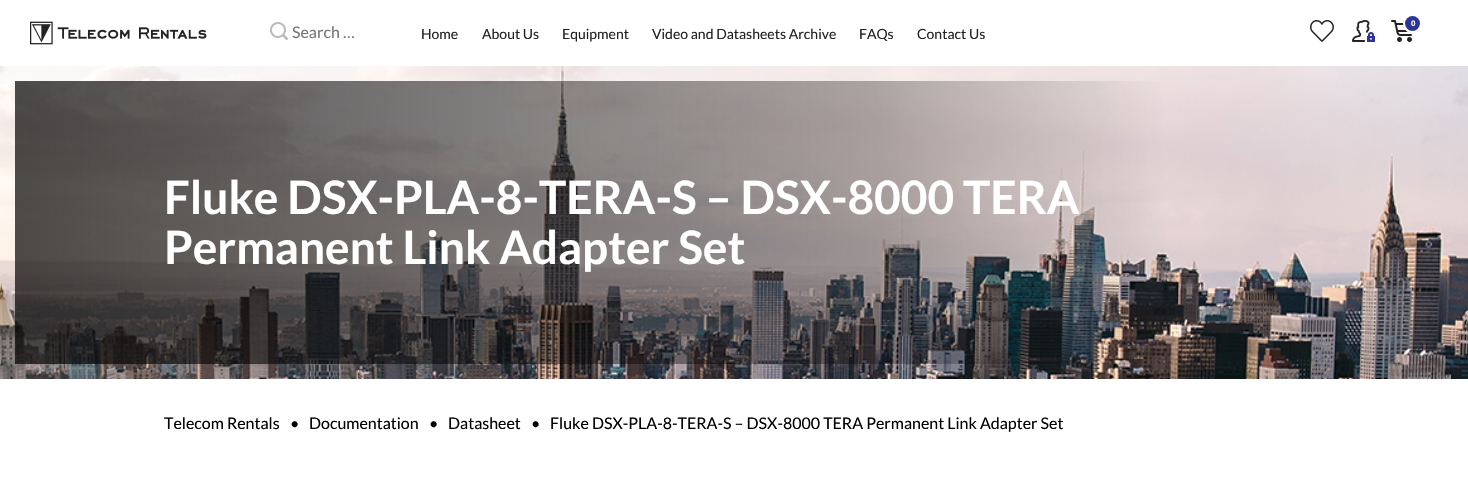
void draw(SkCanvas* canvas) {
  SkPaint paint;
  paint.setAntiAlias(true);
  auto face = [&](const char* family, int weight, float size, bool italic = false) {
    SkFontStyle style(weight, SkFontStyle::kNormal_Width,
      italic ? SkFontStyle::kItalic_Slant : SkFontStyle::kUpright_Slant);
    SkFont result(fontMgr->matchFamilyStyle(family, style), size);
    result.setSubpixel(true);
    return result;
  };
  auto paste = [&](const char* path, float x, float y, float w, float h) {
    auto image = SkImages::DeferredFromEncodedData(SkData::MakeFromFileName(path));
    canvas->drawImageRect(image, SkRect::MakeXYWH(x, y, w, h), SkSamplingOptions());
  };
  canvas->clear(0xffffffff);
  paste("img/1.png", 30, 21, 177, 24);
  paste("img/2.png", 1310, 20, 24, 22);
  paste("img/3.png", 1352, 20, 23, 22);
  paste("img/4.png", 1391, 20, 21, 22);
  paint.setColor(0xff2b3595);
  canvas->drawCircle(1412.5f, 23.5f, 7.5f, paint);
  paste("img/5.png", 270, 22, 18, 18);
  paste("img/6.png", 0, 66, 1468, 313);
  auto f0 = face("Liberation Sans", 700, 8);
  paint.setColor(0xffffffff);
  canvas->drawString("0", 1411, 26, f0, paint);
  auto f1 = face("Lato", 400, 16);
  paint.setColor(0xff757575);
  canvas->drawString("Search …", 292, 38, f1, paint);
  auto f2 = face("Lato", 400, 14);
  paint.setColor(0xff222222);
  {
    const struct { const char* s; float x, y; } items[] = {
      {"Home", 421, 39},
      {"About Us", 482, 39},
      {"Equipment", 562, 39},
      {"Video and Datasheets Archive", 652, 39},
      {"FAQs", 859, 39},
      {"Contact Us", 917, 39},
    };
    for (auto [s, x, y] : items) {
      canvas->drawString(s, x, y, f2, paint);
    }
  }
  auto f3 = face("Lato", 700, 46);
  paint.setColor(0xffffffff);
  canvas->drawString("Fluke DSX-PLA-8-TERA-S – DSX-8000 TERA", 164, 214, f3, paint);
  canvas->drawString("Permanent Link Adapter Set", 164, 264, f3, paint);
  paint.setColor(0xff000000);
  {
    const struct { const char* s; float x, y; } items[] = {
      {"Telecom Rentals", 164, 429},
      {"•", 290, 429},
      {"Documentation", 309, 429},
      {"•", 429, 429},
      {"Datasheet", 448, 429},
      {"•", 531, 429},
      {"Fluke DSX-PLA-8-TERA-S – DSX-8000 TERA Permanent Link Adapter Set", 550, 429},
    };
    for (auto [s, x, y] : items) {
      canvas->drawString(s, x, y, f1, paint);
    }
  }
}
